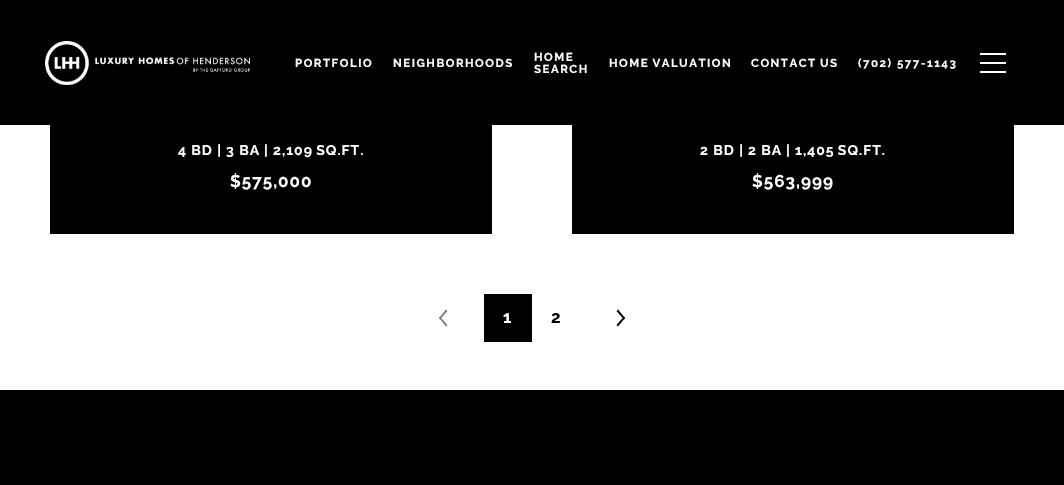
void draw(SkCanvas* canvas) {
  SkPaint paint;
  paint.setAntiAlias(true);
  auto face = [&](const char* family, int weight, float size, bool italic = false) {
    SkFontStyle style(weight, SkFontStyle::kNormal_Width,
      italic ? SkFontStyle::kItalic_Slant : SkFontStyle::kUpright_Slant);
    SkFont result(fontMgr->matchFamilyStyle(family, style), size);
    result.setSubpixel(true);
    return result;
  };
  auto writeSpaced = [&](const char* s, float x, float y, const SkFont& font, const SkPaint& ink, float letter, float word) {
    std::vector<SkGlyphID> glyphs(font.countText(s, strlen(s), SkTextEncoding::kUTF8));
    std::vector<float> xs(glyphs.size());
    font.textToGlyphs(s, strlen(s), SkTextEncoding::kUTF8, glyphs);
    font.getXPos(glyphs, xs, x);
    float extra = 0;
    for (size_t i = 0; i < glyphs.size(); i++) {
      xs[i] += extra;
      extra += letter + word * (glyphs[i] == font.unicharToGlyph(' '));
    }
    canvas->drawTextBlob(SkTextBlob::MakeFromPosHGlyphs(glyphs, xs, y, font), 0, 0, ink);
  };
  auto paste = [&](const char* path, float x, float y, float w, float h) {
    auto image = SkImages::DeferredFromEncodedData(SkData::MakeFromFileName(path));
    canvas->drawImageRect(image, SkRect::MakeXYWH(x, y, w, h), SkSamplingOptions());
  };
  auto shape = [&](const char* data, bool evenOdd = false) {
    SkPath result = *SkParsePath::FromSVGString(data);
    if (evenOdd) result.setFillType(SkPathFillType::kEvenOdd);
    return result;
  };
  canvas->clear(0xffffffff);
  paint.setColor(0xff000000);
  canvas->drawRect(SkRect::MakeXYWH(0, 0, 1064, 125), paint);
  paste("img/1.png", 45, 41, 205, 44);
  {
    const struct { float x, y, w, h; SkColor color; } items[] = {
      {980, 62, 26, 2, 0xffffffff},
      {980, 53, 26, 2, 0xffffffff},
      {980, 71, 26, 2, 0xffffffff},
      {50, 125, 442, 109, 0xff000000},
      {572, 125, 442, 109, 0xff000000},
    };
    for (auto [x, y, w, h, color] : items) {
      paint.setColor(color);
      canvas->drawRect(SkRect::MakeXYWH(x, y, w, h), paint);
    }
  }
  paint.setColor(0xff808080);
  canvas->drawPath(shape("M440 316.5L447.5 325L446 326.5L439 318Z"), paint);
  canvas->drawPath(shape("M446 309.5L447.5 311L440 319.5L439 318Z"), paint);
  paint.setColor(0xff000000);
  canvas->drawRect(SkRect::MakeXYWH(484, 294, 48, 48), paint);
  canvas->drawPath(shape("M624 319.5L616.5 311L618 309.5L625 318Z"), paint);
  canvas->drawPath(shape("M618 326.5L616.5 325L624 316.5L625 318Z"), paint);
  canvas->drawRect(SkRect::MakeXYWH(0, 390, 1064, 95), paint);
  auto f0 = face("Raleway", 700, 11.5f);
  paint.setColor(0xffffffff);
  {
    const struct { const char* s; float x, y; } items[] = {
      {"PORTFOLIO", 295, 67},
      {"NEIGHBORHOODS", 393, 67},
      {"HOME", 534, 61},
      {"SEARCH", 534, 73},
    };
    for (auto [s, x, y] : items) {
      writeSpaced(s, x, y, f0, paint, 1.5f, 0);
    }
  }
  writeSpaced("HOME VALUATION", 609, 67, f0, paint, 1.5f, -1);
  writeSpaced("CONTACT US", 751, 67, f0, paint, 1.5f, -1);
  writeSpaced("(702) 577-1143", 858, 67, f0, paint, 1.5f, 0);
  auto f1 = face("Raleway", 700, 14);
  {
    const struct { const char* s; float x, y; } items[] = {
      {"4 BD |", 178, 155},
      {"3 BA", 226, 155},
      {"|", 264, 155},
    };
    for (auto [s, x, y] : items) {
      writeSpaced(s, x, y, f1, paint, 1, 0);
    }
  }
  writeSpaced("2,109 SQ.FT.", 273, 155, f1, paint, 1, -1);
  auto f2 = face("Raleway", 700, 17);
  writeSpaced("$575,000", 230, 187, f2, paint, 1, 0);
  {
    const struct { const char* s; float x, y; } items[] = {
      {"2 BD |", 700, 155},
      {"2 BA", 748, 155},
      {"|", 786, 155},
    };
    for (auto [s, x, y] : items) {
      writeSpaced(s, x, y, f1, paint, 1, 0);
    }
  }
  writeSpaced("1,405 SQ.FT.", 795, 155, f1, paint, 1, -1);
  writeSpaced("$563,999", 752, 187, f2, paint, 1, 0);
  writeSpaced("1", 503, 323, f2, paint, 1, 0);
  paint.setColor(0xff000000);
  writeSpaced("2", 551, 323, f2, paint, 1, 0);
}
